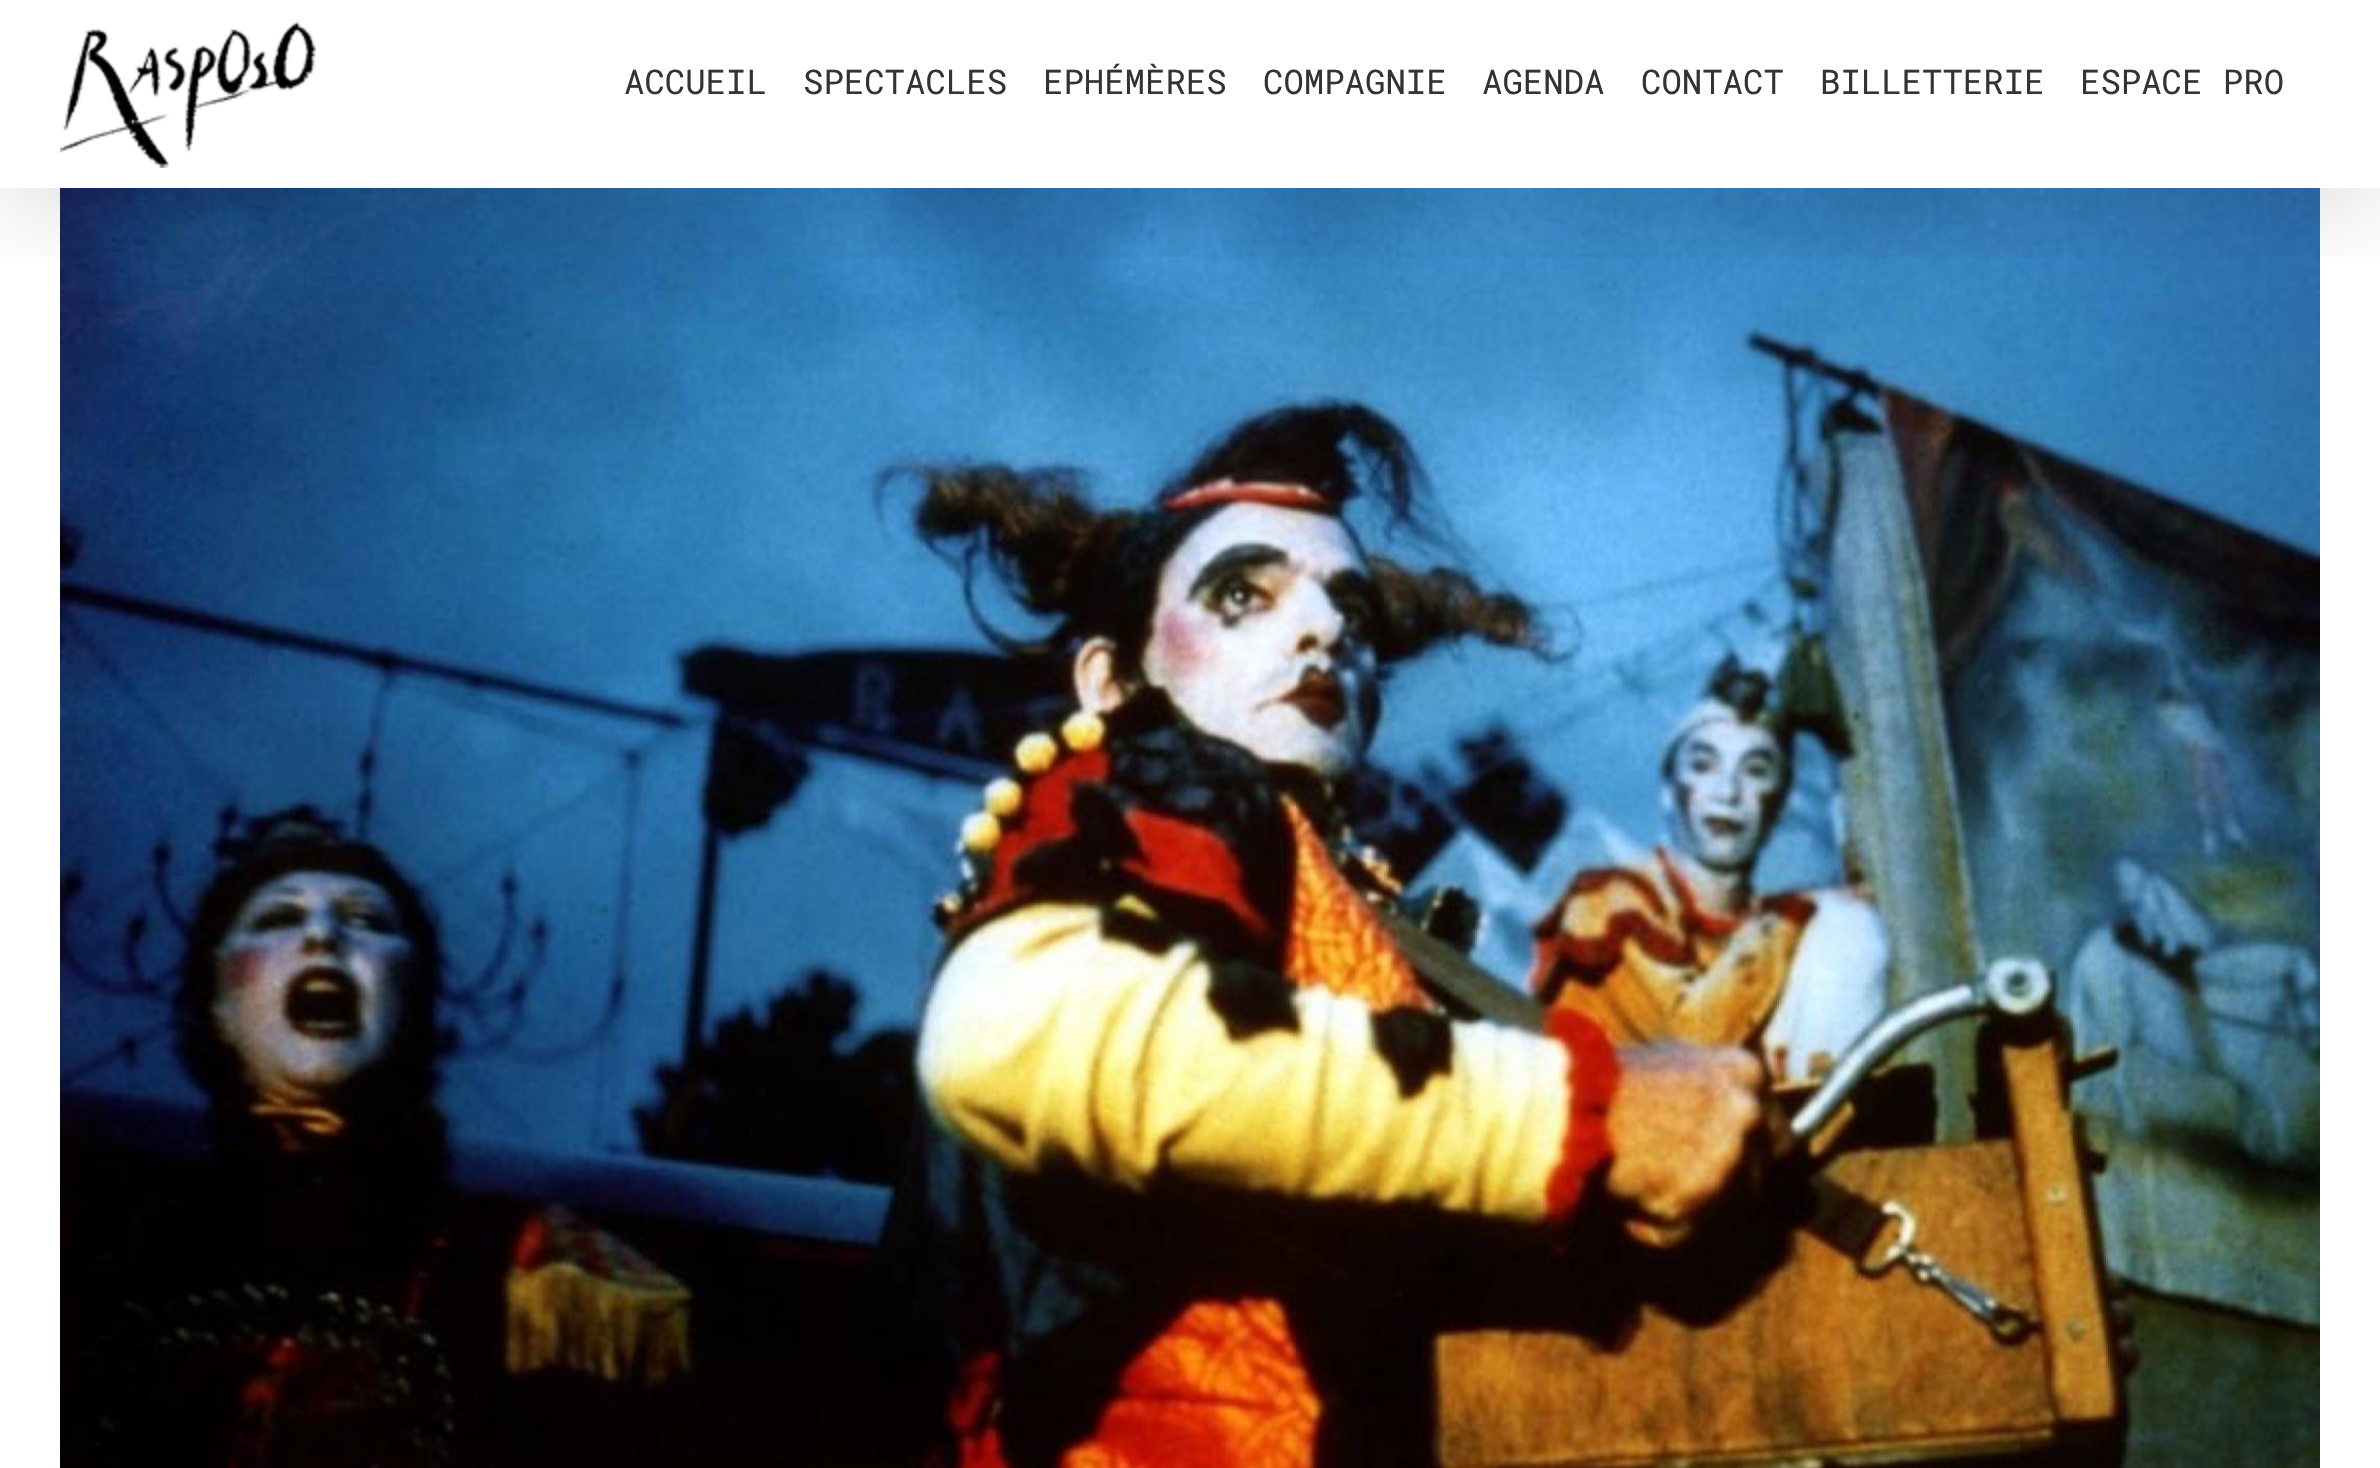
void draw(SkCanvas* canvas) {
  SkPaint paint;
  paint.setAntiAlias(true);
  auto face = [&](const char* family, int weight, float size, bool italic = false) {
    SkFontStyle style(weight, SkFontStyle::kNormal_Width,
      italic ? SkFontStyle::kItalic_Slant : SkFontStyle::kUpright_Slant);
    SkFont result(fontMgr->matchFamilyStyle(family, style), size);
    result.setSubpixel(true);
    return result;
  };
  auto paste = [&](const char* path, float x, float y, float w, float h) {
    auto image = SkImages::DeferredFromEncodedData(SkData::MakeFromFileName(path));
    canvas->drawImageRect(image, SkRect::MakeXYWH(x, y, w, h), SkSamplingOptions());
  };
  canvas->clear(0xffffffff);
  paste("img/2.png", 60, 188, 2260, 1280);
  canvas->save();
  canvas->clipRect(SkRect::MakeXYWH(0, 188, 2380, 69));
  paint.setColor(0x24000000);
  paint.setMaskFilter(SkMaskFilter::MakeBlur(kNormal_SkBlurStyle, 50));
  canvas->drawRect(SkRect::MakeXYWH(4, 24, 2372, 180), paint);
  paint.setMaskFilter(nullptr);
  canvas->restore();
  paste("img/1.png", 60, 20, 256, 148);
  auto f0 = face("Roboto Mono", 400, 34);
  paint.setColor(0xff333333);
  {
    const struct { const char* s; float x, y; } items[] = {
      {"ACCUEIL", 624, 94},
      {"SPECTACLES", 803, 94},
      {"EPHÉMÈRES", 1043, 94},
      {"COMPAGNIE", 1263, 94},
      {"AGENDA", 1482, 94},
      {"CONTACT", 1641, 94},
      {"BILLETTERIE", 1820, 94},
      {"ESPACE PRO", 2080, 94},
    };
    for (auto [s, x, y] : items) {
      canvas->drawString(s, x, y, f0, paint);
    }
  }
}
